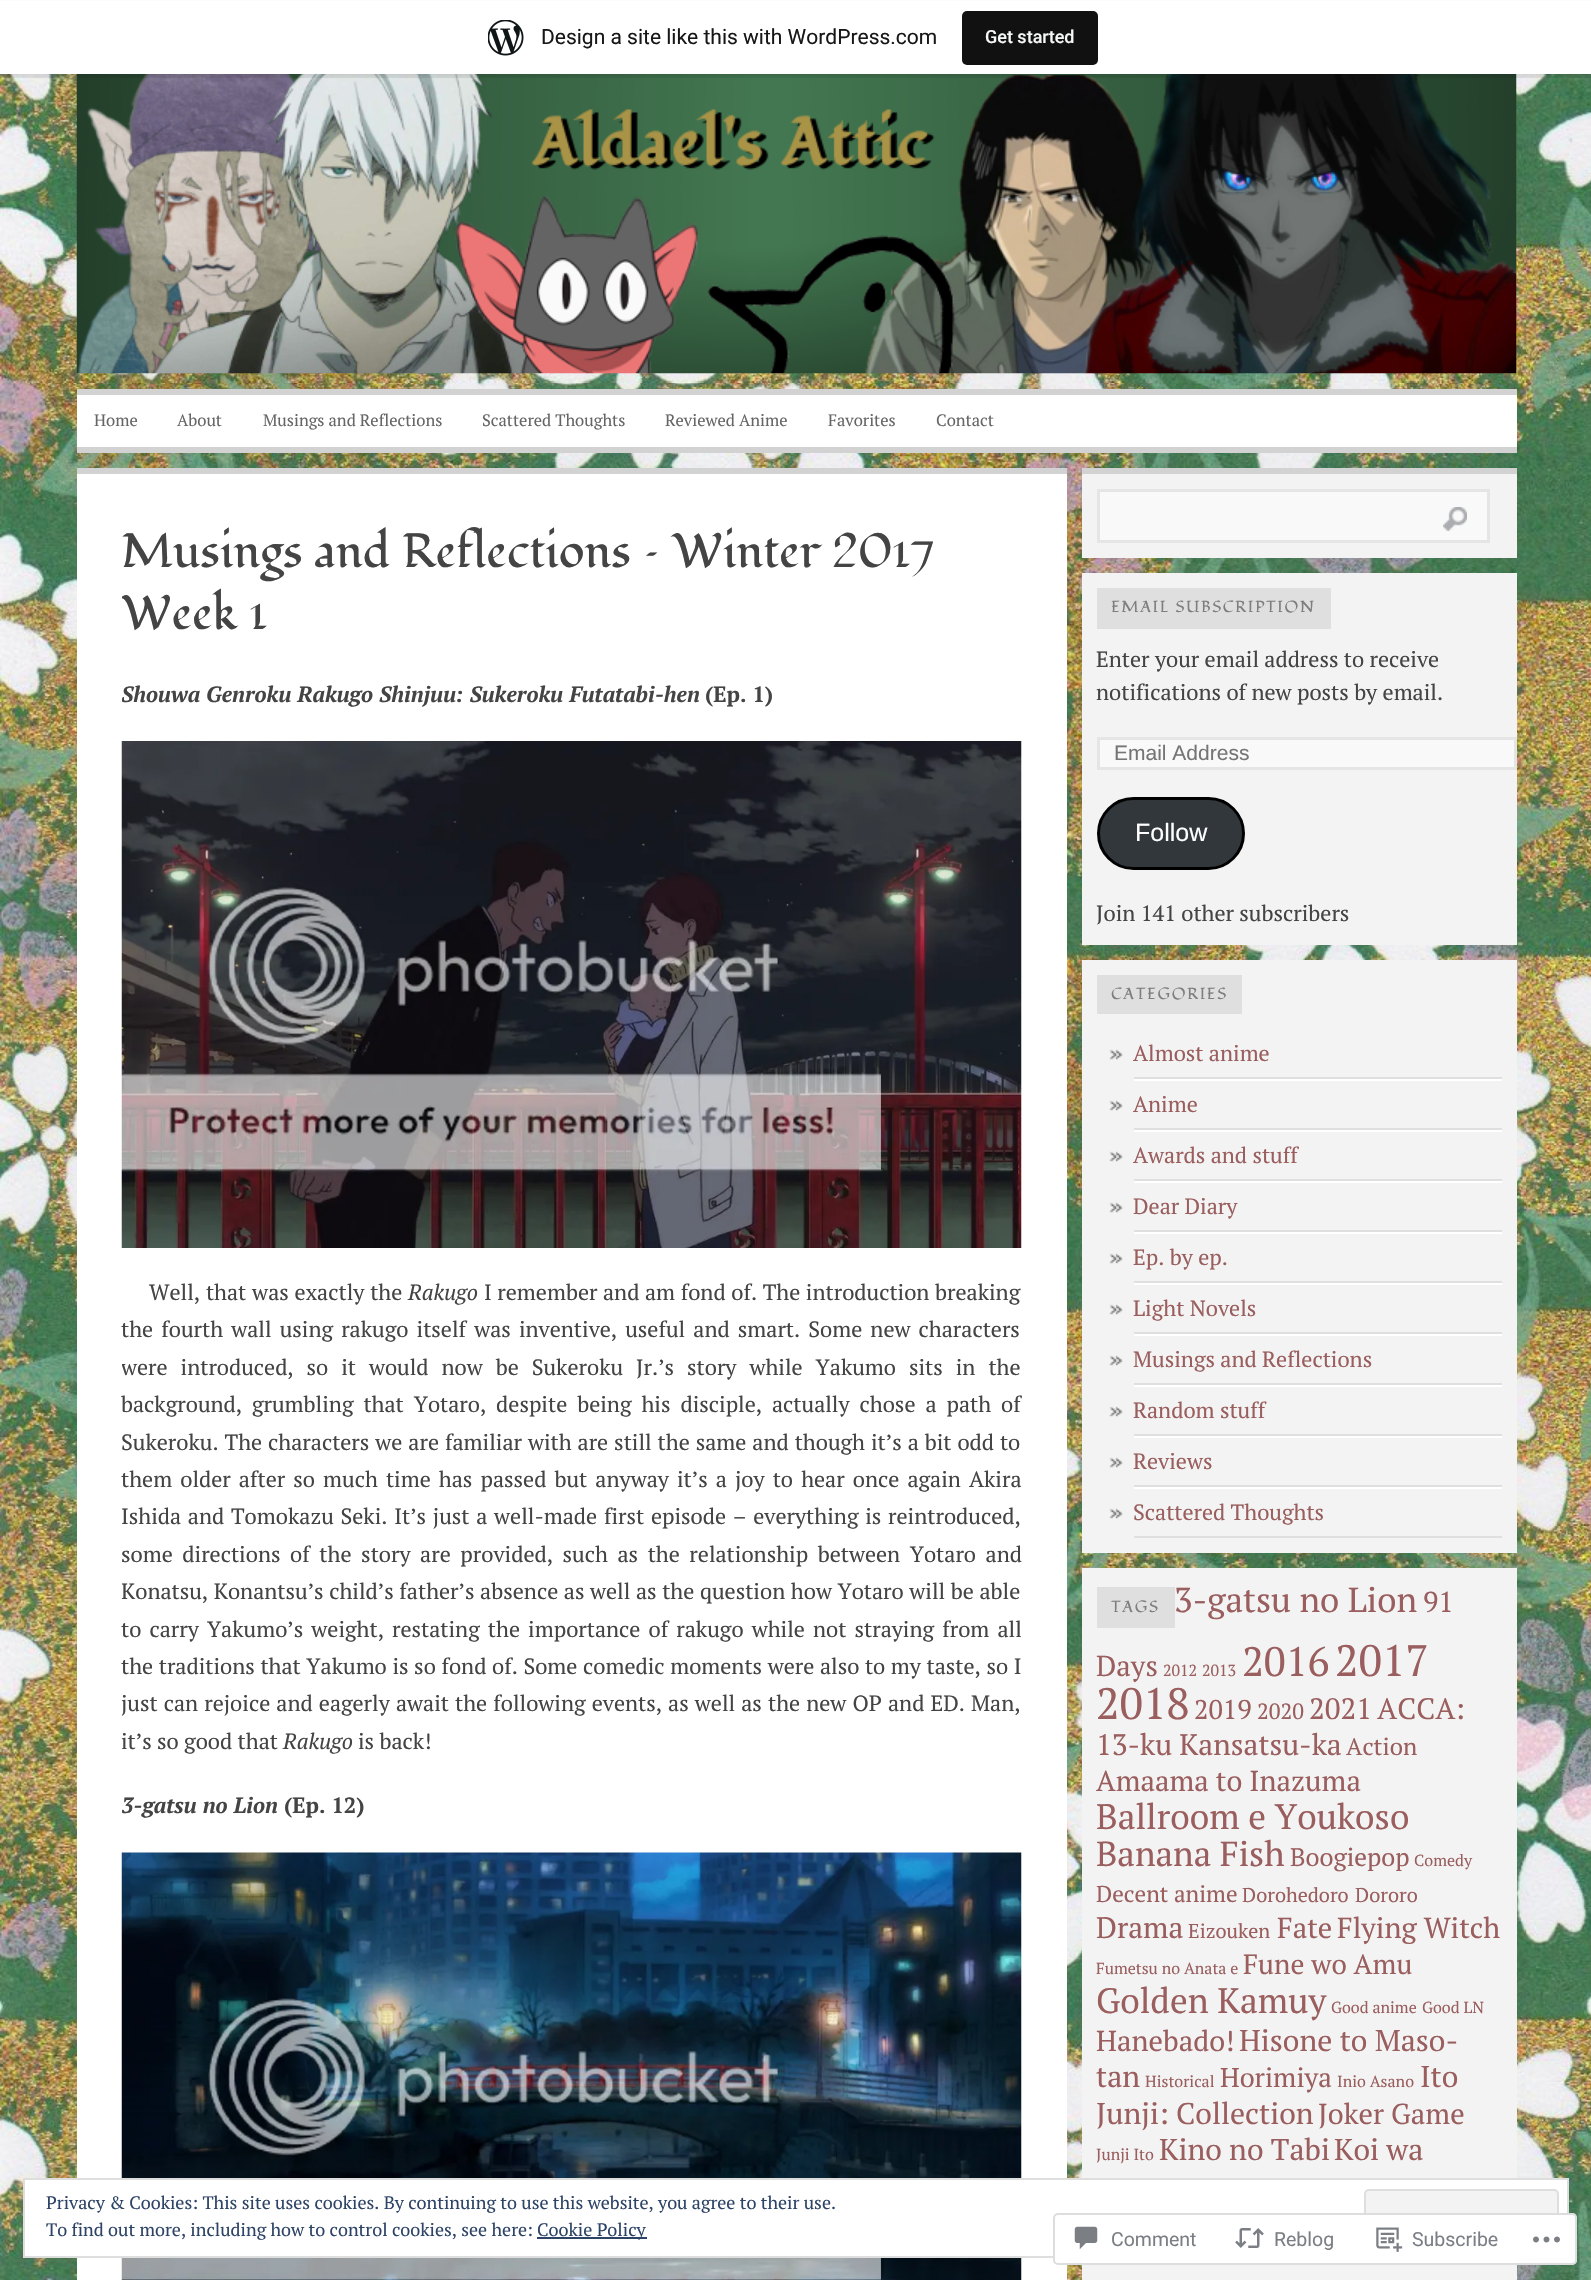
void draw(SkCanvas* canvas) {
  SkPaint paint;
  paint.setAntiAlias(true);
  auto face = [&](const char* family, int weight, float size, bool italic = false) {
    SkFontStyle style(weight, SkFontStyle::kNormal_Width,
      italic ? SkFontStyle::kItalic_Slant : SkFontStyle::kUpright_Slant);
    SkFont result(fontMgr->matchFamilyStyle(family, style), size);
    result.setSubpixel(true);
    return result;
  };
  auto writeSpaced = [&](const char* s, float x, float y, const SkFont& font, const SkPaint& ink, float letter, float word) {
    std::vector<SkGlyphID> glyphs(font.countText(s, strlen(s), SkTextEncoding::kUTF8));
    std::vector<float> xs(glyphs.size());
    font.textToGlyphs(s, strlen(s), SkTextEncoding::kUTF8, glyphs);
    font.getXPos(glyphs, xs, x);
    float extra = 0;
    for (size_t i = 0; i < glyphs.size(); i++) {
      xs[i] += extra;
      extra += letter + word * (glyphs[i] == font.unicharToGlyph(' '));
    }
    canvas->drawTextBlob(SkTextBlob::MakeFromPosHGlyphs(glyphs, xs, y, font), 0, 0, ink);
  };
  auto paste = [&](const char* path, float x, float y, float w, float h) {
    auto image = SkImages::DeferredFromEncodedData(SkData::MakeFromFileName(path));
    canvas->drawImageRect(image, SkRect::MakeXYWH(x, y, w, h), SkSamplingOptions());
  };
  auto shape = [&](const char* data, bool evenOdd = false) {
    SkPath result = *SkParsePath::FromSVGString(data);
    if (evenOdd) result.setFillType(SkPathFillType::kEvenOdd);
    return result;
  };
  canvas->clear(0xffffffff);
  paste("img/1.png", 0, 74, 1591, 2206);
  paste("img/3.png", 76, 74, 1441, 300);
  paint.setColor(0x0d000000);
  paint.setMaskFilter(SkMaskFilter::MakeBlur(kNormal_SkBlurStyle, 1.5f));
  canvas->drawRect(SkRect::MakeXYWH(0, 2, 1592, 73), paint);
  paint.setMaskFilter(nullptr);
  paint.setColor(0x14000000);
  canvas->drawPath(shape("M2 74V78H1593V5H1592V74Z"), paint);
  paint.setColor(0xffffffff);
  canvas->drawRect(SkRect::MakeXYWH(0, 1, 1591, 73), paint);
  paste("img/2.png", 488, 20, 36, 36);
  paint.setColor(0xff111111);
  canvas->drawRoundRect(SkRect::MakeXYWH(962, 11, 136, 54), 5, 5, paint);
  {
    const struct { float x, y, w, h; SkColor color; } items[] = {
      {77, 395, 1440, 52, 0xffffffff},
      {77, 389, 1440, 6, 0xffd2d2d2},
      {77, 447, 1440, 6, 0xffd2d2d2},
      {77, 474, 990, 1806, 0xffffffff},
      {77, 468, 990, 6, 0xffd2d2d2},
    };
    for (auto [x, y, w, h, color] : items) {
      paint.setColor(color);
      canvas->drawRect(SkRect::MakeXYWH(x, y, w, h), paint);
    }
  }
  paste("img/4.png", 121, 741, 901, 507);
  paste("img/5.png", 121, 1852, 901, 428);
  {
    const struct { float x, y, w, h; SkColor color; } items[] = {
      {1082, 468, 435, 6, 0xffd2d2d2},
      {1082, 474, 435, 84, 0xfff3f3f3},
      {1100, 492, 387, 48, 0xfff9f9f9},
    };
    for (auto [x, y, w, h, color] : items) {
      paint.setColor(color);
      canvas->drawRect(SkRect::MakeXYWH(x, y, w, h), paint);
    }
  }
  paste("img/6.png", 1443, 507, 24, 24);
  paint.setStroke(true);
  paint.setStrokeWidth(3);
  paint.setColor(0xffe5e5e5);
  canvas->drawRect(SkRect::MakeXYWH(1098.5f, 490.5f, 390, 51), paint);
  paint.setStroke(false);
  paint.setColor(0xfff3f3f3);
  canvas->drawRect(SkRect::MakeXYWH(1082, 573, 435, 372), paint);
  paint.setColor(0xffdfdfdf);
  canvas->drawRect(SkRect::MakeXYWH(1097, 588, 234, 41), paint);
  paint.setColor(0xfff9f9f9);
  canvas->drawRect(SkRect::MakeXYWH(1098.5f, 738.5f, 417, 30), paint);
  paint.setStroke(true);
  paint.setColor(0xffe5e5e5);
  canvas->drawRect(SkRect::MakeXYWH(1098.5f, 738.5f, 417, 30), paint);
  paint.setStroke(false);
  paint.setColor(0xff32373c);
  canvas->drawRoundRect(SkRect::MakeXYWH(1098.5f, 798.5f, 145, 70), 35, 35, paint);
  paint.setStroke(true);
  paint.setColor(0xff000000);
  canvas->drawRoundRect(SkRect::MakeXYWH(1098.5f, 798.5f, 145, 70), 35, 35, paint);
  paint.setStroke(false);
  {
    const struct { float x, y, w, h; SkColor color; } items[] = {
      {1082, 960, 435, 593, 0xfff3f3f3},
      {1097, 975, 145, 39, 0xffdfdfdf},
      {1134, 1077, 368, 2, 0xffdfdfdf},
    };
    for (auto [x, y, w, h, color] : items) {
      paint.setColor(color);
      canvas->drawRect(SkRect::MakeXYWH(x, y, w, h), paint);
    }
  }
  paste("img/7.png", 1109, 1049, 14, 11);
  paint.setColor(0xffffffff);
  canvas->drawRect(SkRect::MakeXYWH(1134, 1079, 368, 2), paint);
  paint.setColor(0xffdfdfdf);
  canvas->drawRect(SkRect::MakeXYWH(1134, 1128, 368, 2), paint);
  paste("img/7.png", 1109, 1100, 14, 11);
  paint.setColor(0xffffffff);
  canvas->drawRect(SkRect::MakeXYWH(1134, 1130, 368, 2), paint);
  paint.setColor(0xffdfdfdf);
  canvas->drawRect(SkRect::MakeXYWH(1134, 1179, 368, 2), paint);
  paste("img/7.png", 1109, 1151, 14, 11);
  paint.setColor(0xffffffff);
  canvas->drawRect(SkRect::MakeXYWH(1134, 1181, 368, 2), paint);
  paint.setColor(0xffdfdfdf);
  canvas->drawRect(SkRect::MakeXYWH(1134, 1230, 368, 2), paint);
  paste("img/7.png", 1109, 1202, 14, 11);
  paint.setColor(0xffffffff);
  canvas->drawRect(SkRect::MakeXYWH(1134, 1232, 368, 2), paint);
  paint.setColor(0xffdfdfdf);
  canvas->drawRect(SkRect::MakeXYWH(1134, 1281, 368, 2), paint);
  paste("img/7.png", 1109, 1253, 14, 11);
  paint.setColor(0xffffffff);
  canvas->drawRect(SkRect::MakeXYWH(1134, 1283, 368, 2), paint);
  paint.setColor(0xffdfdfdf);
  canvas->drawRect(SkRect::MakeXYWH(1134, 1332, 368, 2), paint);
  paste("img/7.png", 1109, 1304, 14, 11);
  paint.setColor(0xffffffff);
  canvas->drawRect(SkRect::MakeXYWH(1134, 1334, 368, 2), paint);
  paint.setColor(0xffdfdfdf);
  canvas->drawRect(SkRect::MakeXYWH(1134, 1383, 368, 2), paint);
  paste("img/7.png", 1109, 1355, 14, 11);
  paint.setColor(0xffffffff);
  canvas->drawRect(SkRect::MakeXYWH(1134, 1385, 368, 2), paint);
  paint.setColor(0xffdfdfdf);
  canvas->drawRect(SkRect::MakeXYWH(1134, 1434, 368, 2), paint);
  paste("img/7.png", 1109, 1406, 14, 11);
  paint.setColor(0xffffffff);
  canvas->drawRect(SkRect::MakeXYWH(1134, 1436, 368, 2), paint);
  paint.setColor(0xffdfdfdf);
  canvas->drawRect(SkRect::MakeXYWH(1134, 1485, 368, 2), paint);
  paste("img/7.png", 1109, 1457, 14, 11);
  paint.setColor(0xffffffff);
  canvas->drawRect(SkRect::MakeXYWH(1134, 1487, 368, 2), paint);
  paint.setColor(0xffdfdfdf);
  canvas->drawRect(SkRect::MakeXYWH(1134, 1536, 368, 2), paint);
  paste("img/7.png", 1109, 1508, 14, 11);
  paint.setColor(0xfff3f3f3);
  canvas->drawRect(SkRect::MakeXYWH(1082, 1568, 435, 712), paint);
  paint.setColor(0xffdfdfdf);
  canvas->drawRect(SkRect::MakeXYWH(1097, 1587, 78, 41), paint);
  paint.setColor(0xffffffff);
  canvas->drawRect(SkRect::MakeXYWH(24, 2179, 1544, 78), paint);
  paint.setStroke(true);
  paint.setStrokeWidth(2);
  paint.setColor(0xffdedede);
  canvas->drawRect(SkRect::MakeXYWH(24, 2179, 1544, 78), paint);
  paint.setStroke(false);
  paint.setColor(0xfff3f3f3);
  canvas->drawRoundRect(SkRect::MakeXYWH(1365, 2190, 193, 56), 4, 4, paint);
  paint.setStroke(true);
  paint.setColor(0xffdedede);
  canvas->drawRoundRect(SkRect::MakeXYWH(1365, 2190, 193, 56), 4, 4, paint);
  paint.setStroke(false);
  paint.setColor(0xff2e4467);
  canvas->drawRect(SkRect::MakeXYWH(537, 2237, 110, 2), paint);
  paint.setColor(0xfaffffff);
  canvas->drawRoundRect(SkRect::MakeXYWH(1053, 2213, 524, 52), 5, 5, paint);
  paint.setStroke(true);
  paint.setColor(0xfadcdcde);
  canvas->drawRoundRect(SkRect::MakeXYWH(1054, 2214, 522, 50), 4, 4, paint);
  paste("img/8.png", 1074, 2226, 24, 24);
  paste("img/9.png", 1235, 2228, 29, 20);
  paste("img/10.png", 1376, 2227, 27, 25);
  paste("img/11.png", 1533, 2236, 27, 7);
  auto f0 = face("Roboto", 400, 21);
  paint.setStroke(false);
  paint.setColor(0xff171717);
  canvas->drawString("Design a site like this with WordPress.com", 541, 44, f0, paint);
  auto f1 = face("Roboto", 500, 18);
  paint.setColor(0xfff6f7f7);
  canvas->drawString("Get started", 985, 43, f1, paint);
  auto f2 = face("PT Serif", 400, 16.5f);
  paint.setColor(0xff666666);
  {
    const struct { const char* s; float x, y; } items[] = {
      {"Home", 94, 426},
      {"About", 177, 426},
      {"Musings and Reflections", 263, 426},
      {"Scattered Thoughts", 482, 426},
      {"Reviewed Anime", 665, 426},
      {"Favorites", 828, 426},
      {"Contact", 936, 426},
    };
    for (auto [s, x, y] : items) {
      canvas->drawString(s, x, y, f2, paint);
    }
  }
  auto f3 = face("Fondamento", 400, 48);
  paint.setColor(0xff444444);
  canvas->drawString("Musings and Reflections – Winter 2017", 121, 567, f3, paint);
  canvas->save();
  canvas->clipRect(SkRect::MakeXYWH(122, 519, 900, 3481));
  canvas->drawString("Week 1", 121, 629, f3, paint);
  canvas->restore();
  canvas->save();
  canvas->clipRect(SkRect::MakeXYWH(122, 677, 900, 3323));
  auto f4 = face("PT Serif", 700, 22, true);
  canvas->drawString("Shouwa Genroku Rakugo Shinjuu: Sukeroku Futatabi-hen", 121, 702, f4, paint);
  canvas->restore();
  auto f5 = face("PT Serif", 700, 22);
  canvas->drawString("(Ep. 1)", 705, 702, f5, paint);
  auto f6 = face("PT Serif", 400, 22);
  writeSpaced("Well, that was exactly the", 149, 1300, f6, paint, 0, 0.5f);
  auto f7 = face("PT Serif", 400, 22, true);
  canvas->drawString("Rakugo", 408, 1300, f7, paint);
  writeSpaced("I remember and am fond of. The introduction breaking", 484, 1300, f6, paint, 0, 0.25f);
  writeSpaced("the fourth wall using rakugo itself was inventive, useful and smart. Some new characters", 121, 1337, f6, paint, 0, 2.75f);
  canvas->save();
  canvas->clipRect(SkRect::MakeXYWH(122, 677, 900, 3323));
  writeSpaced("were introduced, so it would now be Sukeroku Jr.’s story while Yakumo sits in the", 121, 1375, f6, paint, 0, 7.6f);
  canvas->restore();
  writeSpaced("background, grumbling that Yotaro, despite being his disciple, actually chose a path of", 121, 1412, f6, paint, 0, 4.6f);
  writeSpaced("Sukeroku. The characters we are familiar with are still the same and though it’s a bit odd to", 121, 1450, f6, paint, 0, 0.6f);
  writeSpaced("them older after so much time has passed but anyway it’s a joy to hear once again Akira", 121, 1487, f6, paint, 0, 2.75f);
  writeSpaced("Ishida and Tomokazu Seki. It’s just a well-made first episode – everything is reintroduced,", 121, 1524, f6, paint, 0, 1.4f);
  writeSpaced("some directions of the story are provided, such as the relationship between Yotaro and", 121, 1562, f6, paint, 0, 4.25f);
  canvas->save();
  canvas->clipRect(SkRect::MakeXYWH(122, 677, 900, 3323));
  writeSpaced("Konatsu, Konantsu’s child’s father’s absence as well as the question how Yotaro will be able", 121, 1599, f6, paint, 0, 0.25f);
  canvas->restore();
  writeSpaced("to carry Yakumo’s weight, restating the importance of rakugo while not straying from all", 121, 1637, f6, paint, 0, 2.75f);
  writeSpaced("the traditions that Yakumo is so fond of. Some comedic moments were also to my taste, so I", 121, 1674, f6, paint, 0, 0.25f);
  writeSpaced("just can rejoice and eagerly await the following events, as well as the new OP and ED. Man,", 121, 1711, f6, paint, 0, 0.75f);
  canvas->drawString("it’s so good that", 121, 1749, f6, paint);
  canvas->drawString("Rakugo", 283, 1749, f7, paint);
  canvas->drawString("is back!", 358, 1749, f6, paint);
  canvas->save();
  canvas->clipRect(SkRect::MakeXYWH(122, 677, 900, 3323));
  canvas->drawString("3-gatsu no Lion", 121, 1813, f4, paint);
  canvas->restore();
  canvas->drawString("(Ep. 12)", 284, 1813, f5, paint);
  auto f8 = face("Fondamento", 400, 16);
  paint.setColor(0xff7e7e7e);
  writeSpaced("EMAIL SUBSCRIPTION", 1111, 612, f8, paint, 1.5f, 0);
  paint.setColor(0xff444444);
  canvas->drawString("Enter your email address to receive", 1096, 667, f6, paint);
  canvas->drawString("notifications of new posts by email.", 1096, 700, f6, paint);
  auto f9 = face("Liberation Sans", 400, 21);
  paint.setColor(0xff757575);
  canvas->drawString("Email Address", 1114, 760, f9, paint);
  auto f10 = face("Liberation Sans", 400, 25);
  paint.setColor(0xffffffff);
  canvas->drawString("Follow", 1135, 841, f10, paint);
  paint.setColor(0xff444444);
  canvas->drawString("Join 141 other subscribers", 1096, 921, f6, paint);
  paint.setColor(0xff7e7e7e);
  writeSpaced("CATEGORIES", 1111, 999, f8, paint, 1.5f, 0);
  paint.setColor(0xff9a5e5e);
  {
    const struct { const char* s; float x, y; } items[] = {
      {"Almost anime", 1133, 1061},
      {"Anime", 1133, 1112},
      {"Awards and stuff", 1133, 1163},
      {"Dear Diary", 1133, 1214},
      {"Ep. by ep.", 1133, 1265},
      {"Light Novels", 1133, 1316},
      {"Musings and Reflections", 1133, 1367},
      {"Random stuff", 1133, 1418},
      {"Reviews", 1133, 1469},
      {"Scattered Thoughts", 1133, 1520},
    };
    for (auto [s, x, y] : items) {
      canvas->drawString(s, x, y, f6, paint);
    }
  }
  paint.setColor(0xff7e7e7e);
  writeSpaced("TAGS", 1111, 1612, f8, paint, 1.5f, 0);
  auto f11 = face("PT Serif", 400, 34.75f);
  paint.setColor(0xff9a5e5e);
  canvas->drawString("3-gatsu no Lion", 1174, 1612, f11, paint);
  auto f12 = face("PT Serif", 400, 28.75f);
  canvas->drawString("91", 1423, 1612, f12, paint);
  canvas->drawString("Days", 1096, 1676, f12, paint);
  auto f13 = face("PT Serif", 400, 16);
  canvas->drawString("2012", 1163, 1676, f13, paint);
  canvas->drawString("2013", 1202, 1676, f13, paint);
  auto f14 = face("PT Serif", 400, 41);
  canvas->drawString("2016", 1242, 1676, f14, paint);
  auto f15 = face("PT Serif", 400, 44);
  canvas->drawString("2017", 1335, 1676, f15, paint);
  canvas->drawString("2018", 1096, 1719, f15, paint);
  auto f16 = face("PT Serif", 400, 27);
  canvas->drawString("2019", 1194, 1719, f16, paint);
  canvas->drawString("2020", 1257, 1719, f6, paint);
  auto f17 = face("PT Serif", 400, 29.5f);
  {
    const struct { const char* s; float x, y; } items[] = {
      {"2021", 1309, 1719},
      {"ACCA:", 1377, 1719},
      {"13-ku Kansatsu-ka", 1096, 1755},
    };
    for (auto [s, x, y] : items) {
      canvas->drawString(s, x, y, f17, paint);
    }
  }
  auto f18 = face("PT Serif", 400, 24);
  canvas->drawString("Action", 1346, 1755, f18, paint);
  canvas->drawString("Amaama to Inazuma", 1096, 1791, f12, paint);
  auto f19 = face("PT Serif", 400, 35.25f);
  canvas->drawString("Ballroom e Youkoso", 1096, 1829, f19, paint);
  canvas->drawString("Banana Fish", 1096, 1866, f11, paint);
  auto f20 = face("PT Serif", 400, 25.25f);
  canvas->drawString("Boogiepop", 1290, 1866, f20, paint);
  canvas->drawString("Comedy", 1414, 1866, f13, paint);
  auto f21 = face("PT Serif", 400, 23);
  canvas->drawString("Decent anime", 1096, 1902, f21, paint);
  auto f22 = face("PT Serif", 400, 20);
  canvas->drawString("Dorohedoro", 1242, 1902, f22, paint);
  canvas->drawString("Dororo", 1355, 1902, f22, paint);
  canvas->drawString("Drama", 1096, 1938, f17, paint);
  canvas->drawString("Eizouken", 1188, 1938, f22, paint);
  canvas->drawString("Fate", 1277, 1938, f12, paint);
  canvas->drawString("Flying Witch", 1337, 1938, f12, paint);
  canvas->drawString("Fumetsu no Anata e", 1096, 1974, f13, paint);
  auto f23 = face("PT Serif", 400, 27.75f);
  canvas->drawString("Fune wo Amu", 1243, 1974, f23, paint);
  canvas->drawString("Golden Kamuy", 1096, 2013, f19, paint);
  canvas->drawString("Good anime", 1331, 2013, f13, paint);
  canvas->drawString("Good LN", 1422, 2013, f13, paint);
  canvas->drawString("Hanebado!", 1096, 2051, f12, paint);
  auto f24 = face("PT Serif", 400, 30);
  canvas->drawString("Hisone to Maso-", 1239, 2051, f24, paint);
  canvas->drawString("tan", 1096, 2087, f24, paint);
  canvas->drawString("Historical", 1145, 2087, f13, paint);
  canvas->drawString("Horimiya", 1220, 2087, f16, paint);
  canvas->drawString("Inio Asano", 1337, 2087, f13, paint);
  canvas->drawString("Ito", 1420, 2087, f24, paint);
  canvas->drawString("Junji: Collection", 1096, 2124, f24, paint);
  canvas->drawString("Joker Game", 1318, 2124, f12, paint);
  canvas->drawString("Junji Ito", 1096, 2160, f13, paint);
  canvas->drawString("Kino no Tabi", 1159, 2160, f24, paint);
  canvas->drawString("Koi wa", 1334, 2160, f24, paint);
  auto f25 = face("PT Serif", 400, 18);
  paint.setColor(0xff2e4467);
  {
    const struct { const char* s; float x, y; } items[] = {
      {"Privacy & Cookies: This site uses cookies. By continuing to use this website, you agree to their use.", 46, 2209},
      {"To find out more, including how to control cookies, see here:", 46, 2236},
      {"Cookie Policy", 537, 2236},
    };
    for (auto [s, x, y] : items) {
      canvas->drawString(s, x, y, f25, paint);
    }
  }
  auto f26 = face("Roboto", 400, 19.5f);
  paint.setColor(0xff7b7f85);
  {
    const struct { const char* s; float x, y; } items[] = {
      {"Comment", 1111, 2246},
      {"Reblog", 1274, 2246},
      {"Subscribe", 1412, 2246},
    };
    for (auto [s, x, y] : items) {
      canvas->drawString(s, x, y, f26, paint);
    }
  }
}
